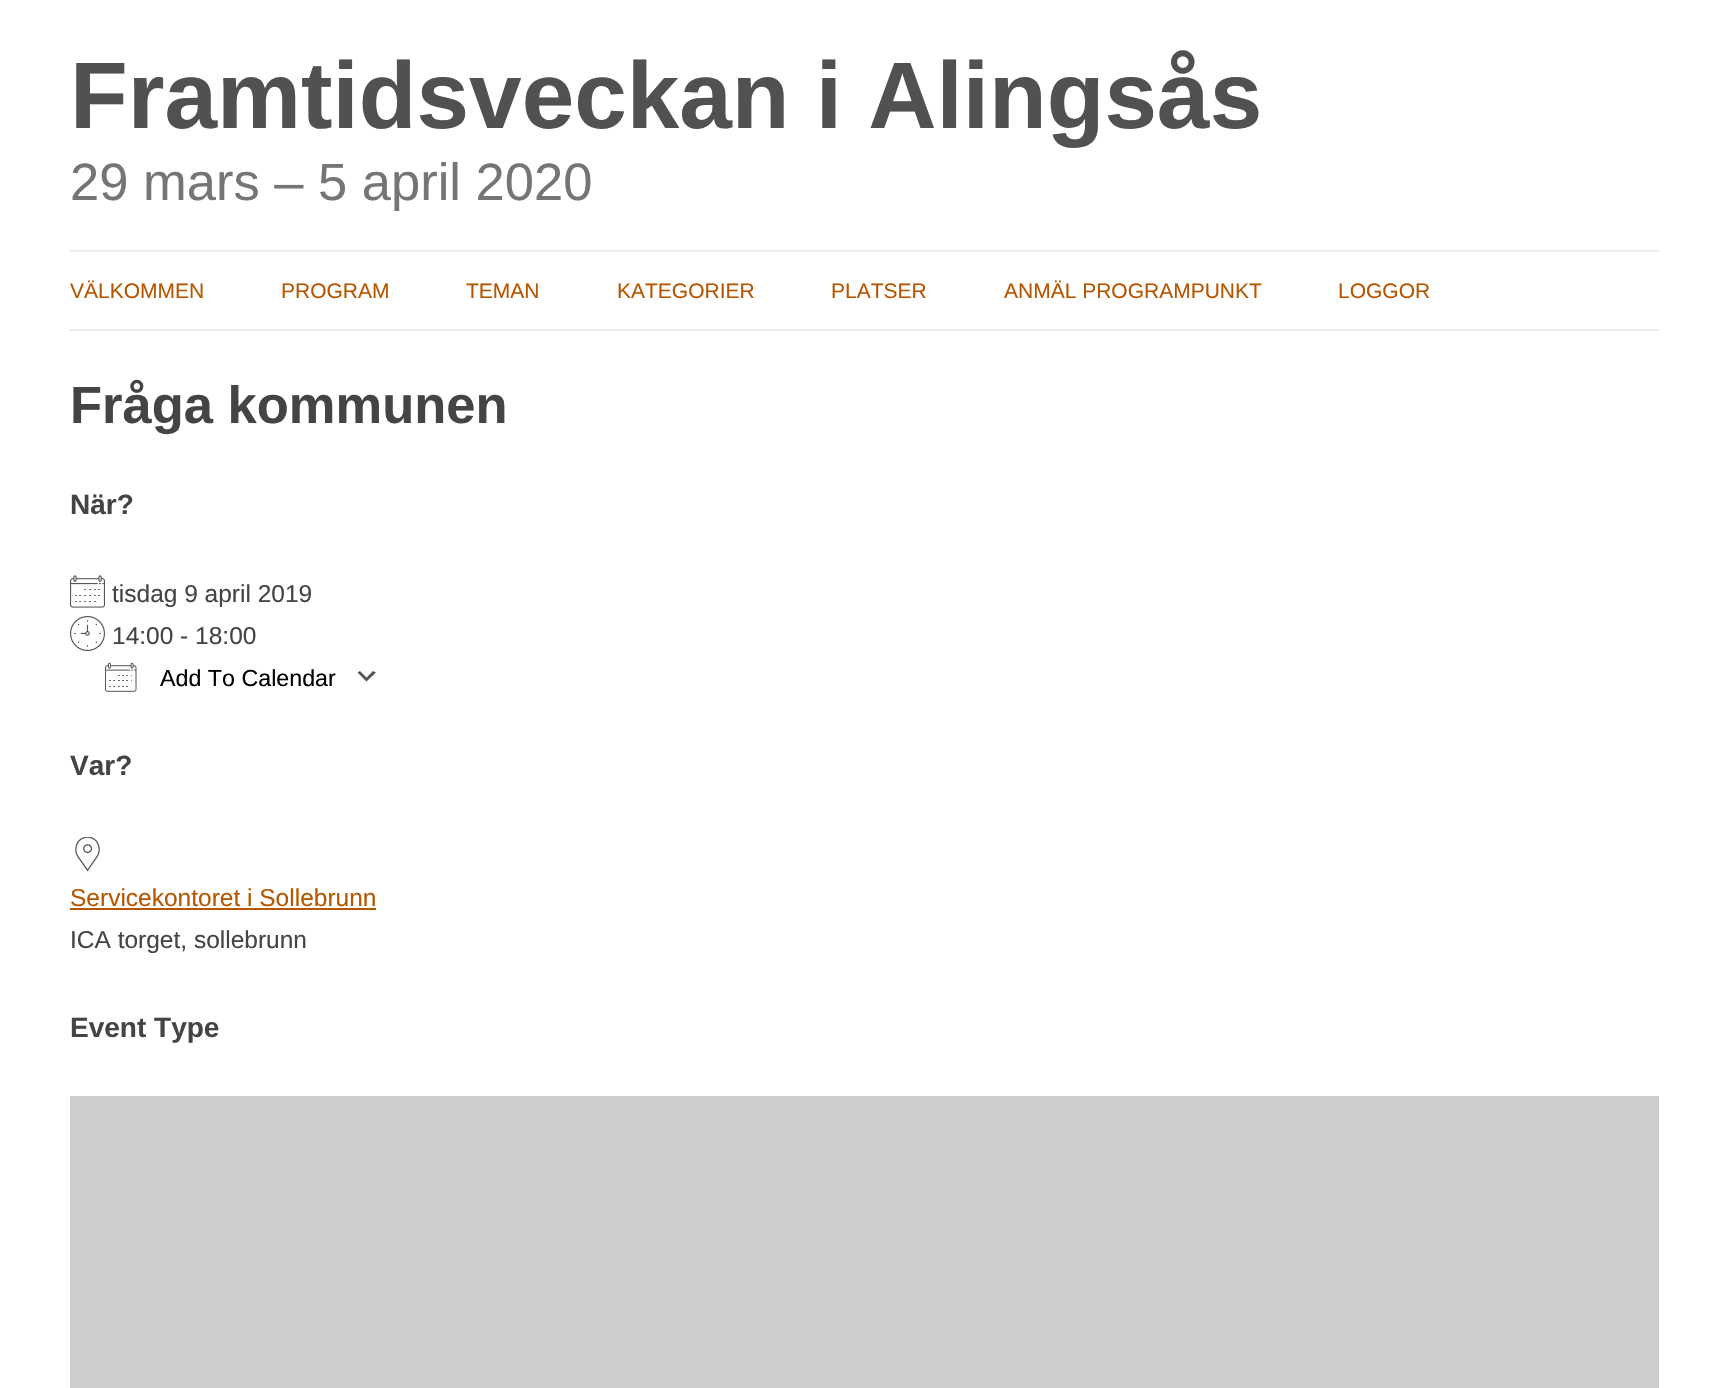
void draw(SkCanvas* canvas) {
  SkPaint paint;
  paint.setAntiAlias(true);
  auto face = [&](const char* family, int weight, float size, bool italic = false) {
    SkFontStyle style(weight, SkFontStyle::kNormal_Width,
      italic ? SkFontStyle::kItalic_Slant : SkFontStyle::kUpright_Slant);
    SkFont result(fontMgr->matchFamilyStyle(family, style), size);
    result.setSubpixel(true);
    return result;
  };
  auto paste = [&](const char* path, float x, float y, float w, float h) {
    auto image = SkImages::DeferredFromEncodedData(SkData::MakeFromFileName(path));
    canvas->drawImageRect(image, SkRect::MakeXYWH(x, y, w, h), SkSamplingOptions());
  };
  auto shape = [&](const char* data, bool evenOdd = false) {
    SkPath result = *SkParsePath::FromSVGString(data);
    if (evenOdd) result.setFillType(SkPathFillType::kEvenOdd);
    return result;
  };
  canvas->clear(0xffffffff);
  paint.setColor(0xffededed);
  canvas->drawRect(SkRect::MakeXYWH(70, 250, 1589, 2), paint);
  canvas->drawRect(SkRect::MakeXYWH(70, 329, 1589, 2), paint);
  paste("img/1.png", 70, 575, 35, 33);
  paste("img/2.png", 70, 616, 35, 35);
  paint.setColor(0xff555555);
  canvas->drawPath(shape("M360 671L366.5 677.5L373 671L376 672.5L366.5 681.5L357.5 672.5Z"), paint);
  paste("img/3.png", 105, 662, 32, 30);
  paste("img/4.png", 75, 837, 25, 35);
  paint.setColor(0xffb65600);
  canvas->drawRect(SkRect::MakeXYWH(70, 908, 306, 2), paint);
  paint.setColor(0xffcdcdcd);
  canvas->drawRect(SkRect::MakeXYWH(70, 1096, 1589, 292), paint);
  auto f0 = face("Liberation Sans", 700, 94.5f);
  paint.setColor(0xff515151);
  canvas->drawString("Framtidsveckan i Alingsås", 70, 128, f0, paint);
  auto f1 = face("Liberation Sans", 400, 52.5f);
  paint.setColor(0xff757575);
  canvas->drawString("29 mars – 5 april 2020", 70, 200, f1, paint);
  auto f2 = face("Liberation Sans", 400, 21);
  paint.setColor(0xffb65600);
  {
    const struct { const char* s; float x, y; } items[] = {
      {"VÄLKOMMEN", 70, 298},
      {"PROGRAM", 281, 298},
      {"TEMAN", 466, 298},
      {"KATEGORIER", 617, 298},
      {"PLATSER", 831, 298},
      {"ANMÄL PROGRAMPUNKT", 1004, 298},
      {"LOGGOR", 1338, 298},
    };
    for (auto [s, x, y] : items) {
      canvas->drawString(s, x, y, f2, paint);
    }
  }
  auto f3 = face("Liberation Sans", 700, 52.5f);
  paint.setColor(0xff444444);
  canvas->drawString("Fråga kommunen", 70, 423, f3, paint);
  auto f4 = face("Liberation Sans", 700, 28);
  canvas->drawString("När?", 70, 514, f4, paint);
  auto f5 = face("Liberation Sans", 400, 24.5f);
  canvas->drawString("tisdag 9 april 2019", 112, 602, f5, paint);
  canvas->drawString("14:00 - 18:00", 112, 644, f5, paint);
  auto f6 = face("Liberation Sans", 400, 23.25f);
  paint.setColor(0xff000000);
  canvas->drawString("Add To Calendar", 160, 686, f6, paint);
  paint.setColor(0xff444444);
  canvas->drawString("Var?", 70, 775, f4, paint);
  paint.setColor(0xffb65600);
  canvas->drawString("Servicekontoret i Sollebrunn", 70, 906, f5, paint);
  paint.setColor(0xff444444);
  canvas->drawString("ICA torget, sollebrunn", 70, 948, f5, paint);
  canvas->drawString("Event Type", 70, 1037, f4, paint);
}
